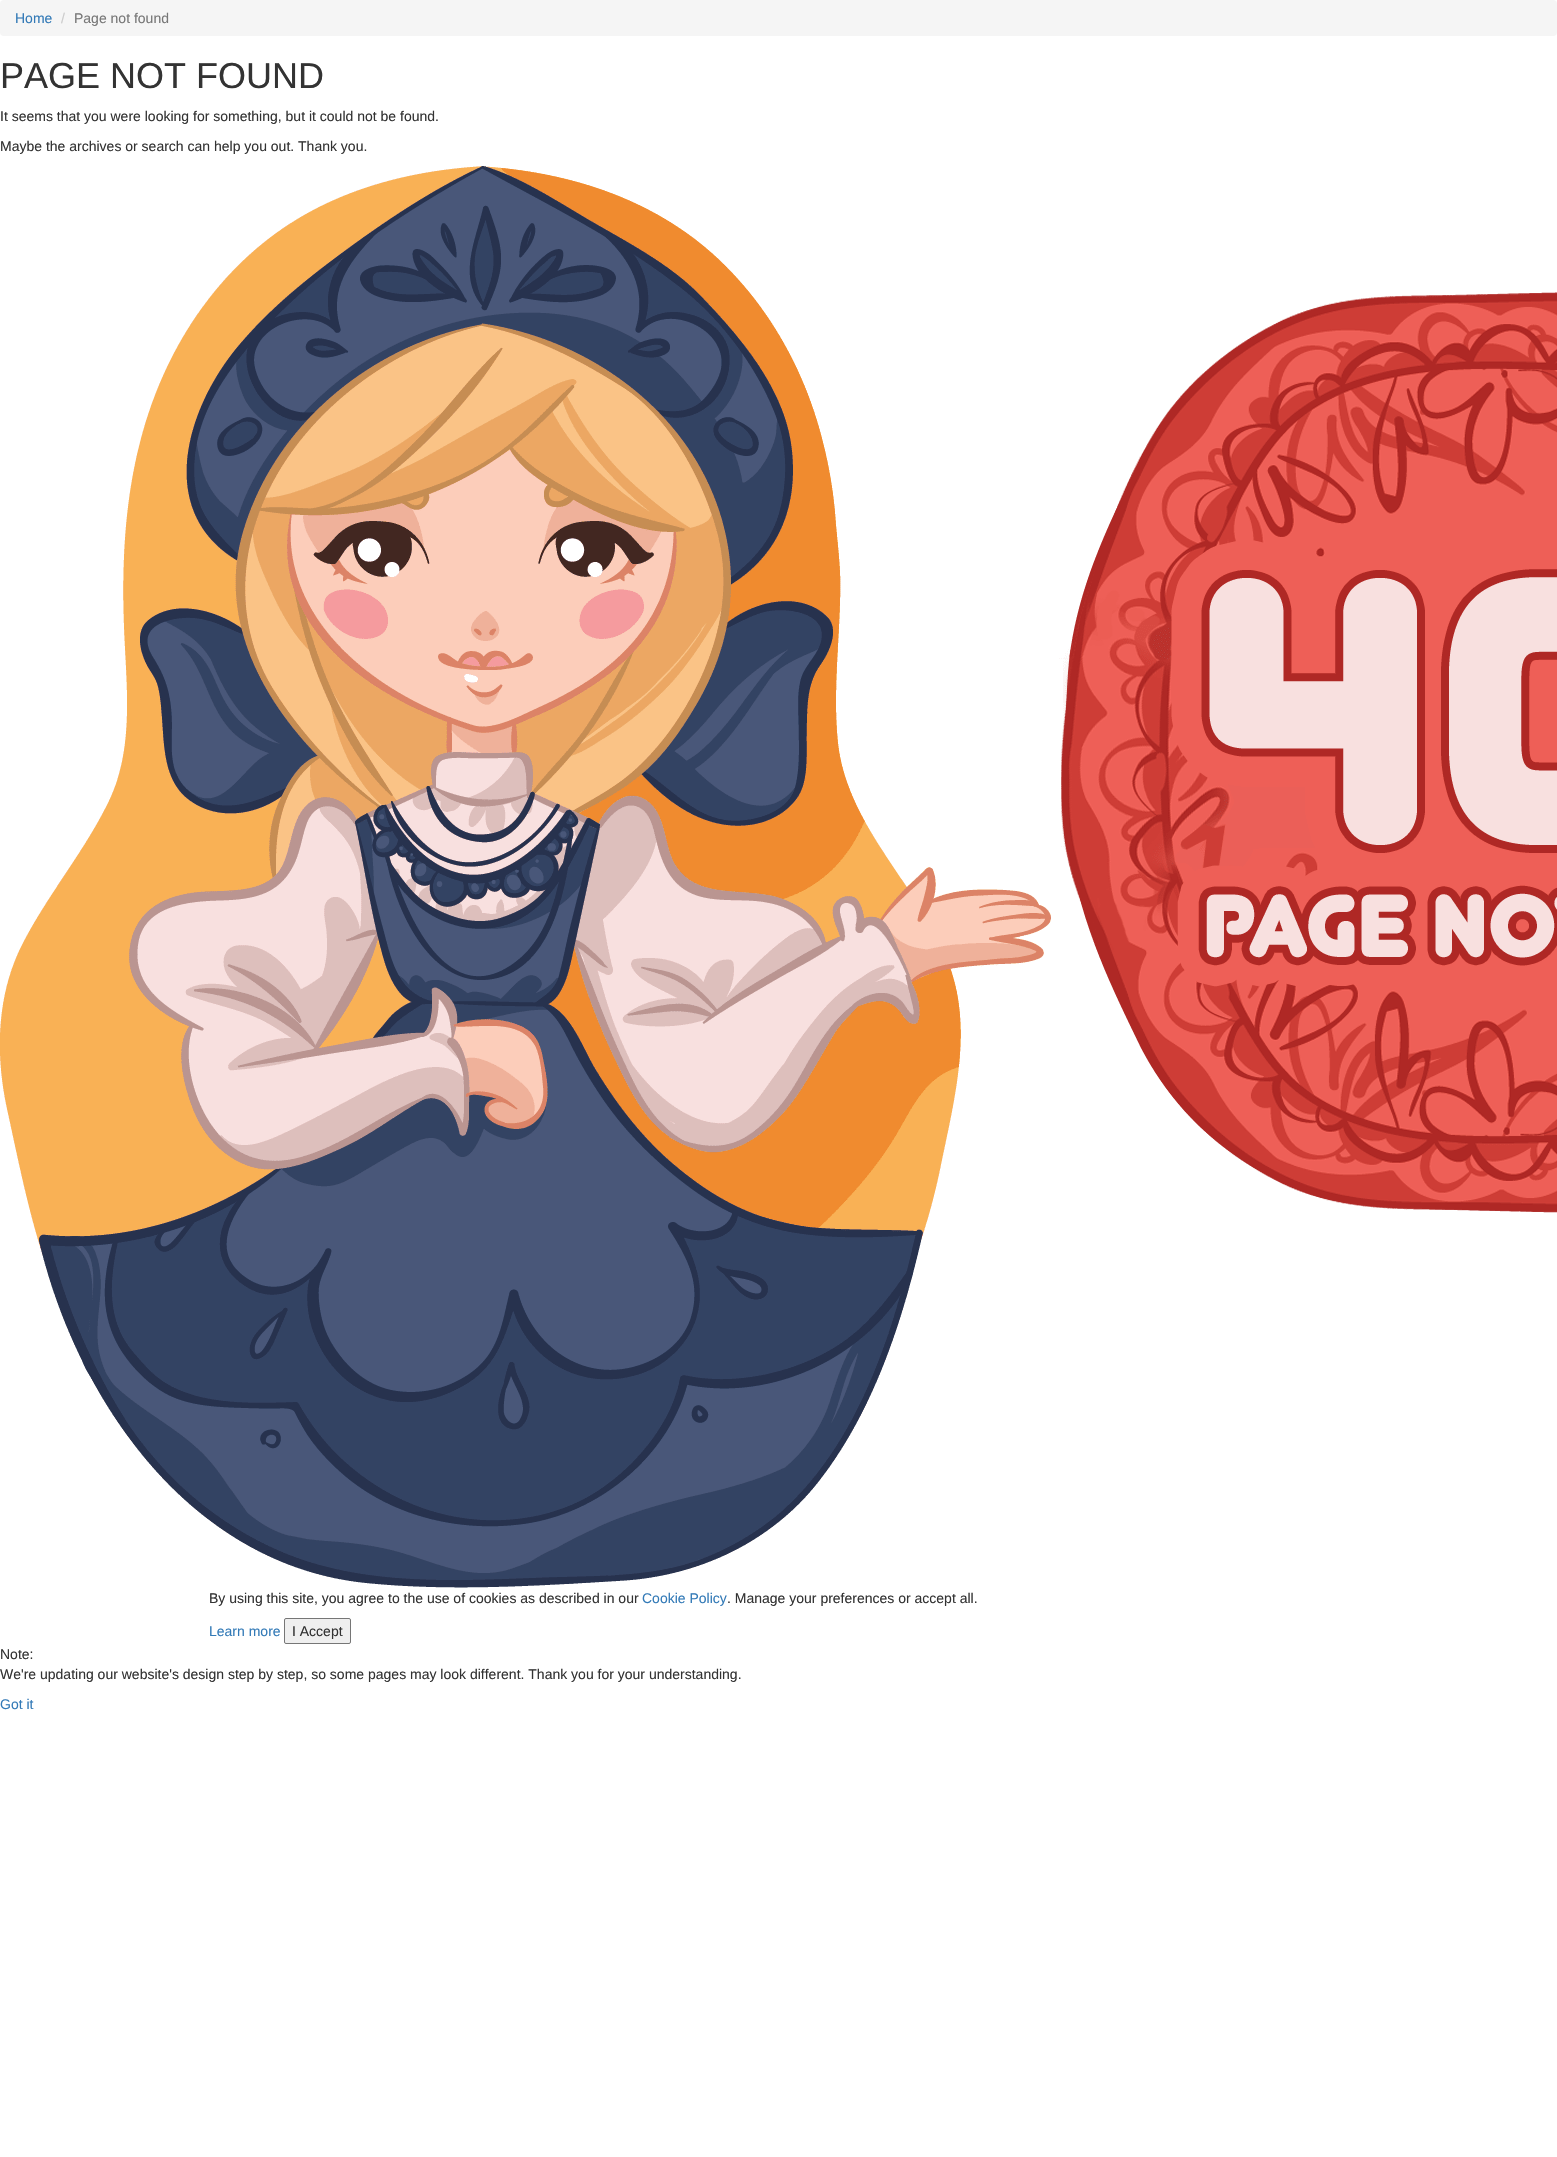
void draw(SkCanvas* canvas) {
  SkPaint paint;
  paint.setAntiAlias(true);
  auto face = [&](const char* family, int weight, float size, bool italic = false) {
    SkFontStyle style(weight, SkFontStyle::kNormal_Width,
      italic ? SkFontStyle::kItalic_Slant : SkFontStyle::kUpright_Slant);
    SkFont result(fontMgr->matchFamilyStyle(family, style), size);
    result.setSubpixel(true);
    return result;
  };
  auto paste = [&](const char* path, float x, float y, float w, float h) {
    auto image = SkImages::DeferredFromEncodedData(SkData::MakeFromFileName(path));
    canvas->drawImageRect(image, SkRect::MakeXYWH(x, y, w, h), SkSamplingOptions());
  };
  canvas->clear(0xffffffff);
  paint.setColor(0xfff5f5f5);
  canvas->drawRoundRect(SkRect::MakeXYWH(0, 0, 1557, 36), 4, 4, paint);
  paste("img/1.png", 0, 166, 1557, 1422);
  paint.setColor(0xffefefef);
  canvas->drawRoundRect(SkRect::MakeXYWH(284.5f, 1618.5f, 66, 25), 1.5f, 1.5f, paint);
  paint.setStroke(true);
  paint.setStrokeWidth(1);
  paint.setColor(0xff767676);
  canvas->drawRoundRect(SkRect::MakeXYWH(284.5f, 1618.5f, 66, 25), 1.5f, 1.5f, paint);
  auto f0 = face("Liberation Sans", 400, 14);
  paint.setStroke(false);
  paint.setColor(0xff337ab7);
  canvas->drawString("Home", 15, 23, f0, paint);
  paint.setColor(0xffcccccc);
  canvas->drawString("/", 61, 23, f0, paint);
  paint.setColor(0xff777777);
  canvas->drawString("Page not found", 74, 23, f0, paint);
  auto f1 = face("Liberation Sans", 400, 36);
  paint.setColor(0xff333333);
  canvas->drawString("PAGE NOT FOUND", 0, 88, f1, paint);
  {
    const struct { const char* s; float x, y; } items[] = {
      {"It seems that you were looking for something, but it could not be found.", 0, 121},
      {"Maybe the archives or search can help you out. Thank you.", 0, 151},
      {"By using this site, you agree to the use of cookies as described in our", 209, 1603},
    };
    for (auto [s, x, y] : items) {
      canvas->drawString(s, x, y, f0, paint);
    }
  }
  paint.setColor(0xff337ab7);
  canvas->drawString("Cookie Policy", 642, 1603, f0, paint);
  paint.setColor(0xff333333);
  canvas->drawString(". Manage your preferences or accept all.", 727, 1603, f0, paint);
  paint.setColor(0xff337ab7);
  canvas->drawString("Learn more", 209, 1636, f0, paint);
  paint.setColor(0xff333333);
  {
    const struct { const char* s; float x, y; } items[] = {
      {"I Accept", 292, 1636},
      {"Note:", 0, 1659},
      {"We're updating our website's design step by step, so some pages may look different. Thank you for your understanding.", 0, 1679},
    };
    for (auto [s, x, y] : items) {
      canvas->drawString(s, x, y, f0, paint);
    }
  }
  paint.setColor(0xff337ab7);
  canvas->drawString("Got it", 0, 1709, f0, paint);
}
